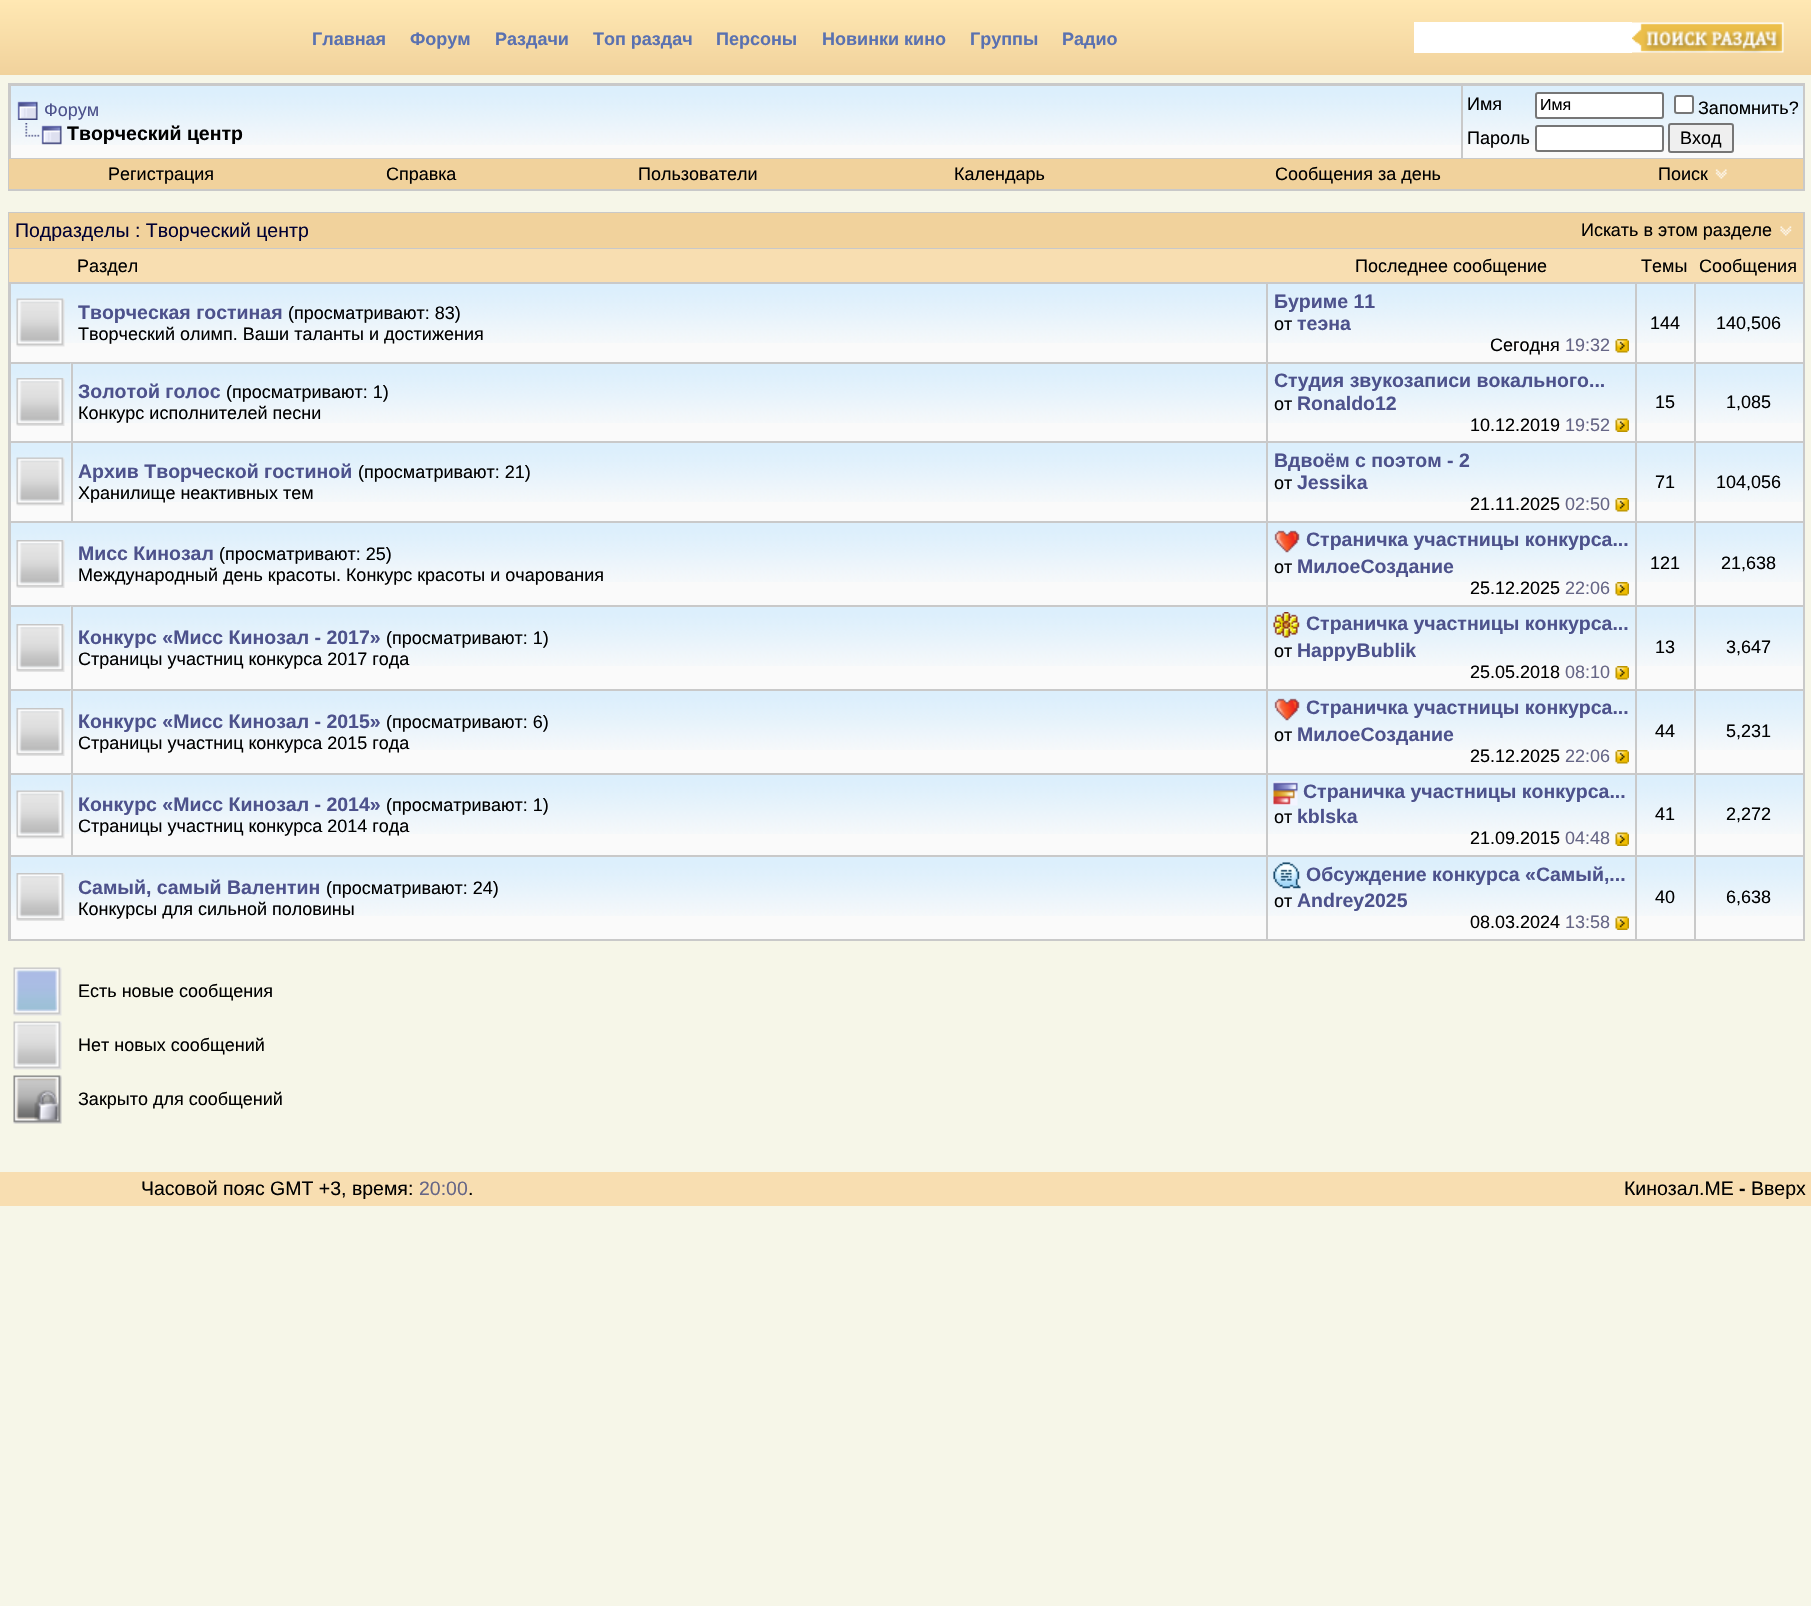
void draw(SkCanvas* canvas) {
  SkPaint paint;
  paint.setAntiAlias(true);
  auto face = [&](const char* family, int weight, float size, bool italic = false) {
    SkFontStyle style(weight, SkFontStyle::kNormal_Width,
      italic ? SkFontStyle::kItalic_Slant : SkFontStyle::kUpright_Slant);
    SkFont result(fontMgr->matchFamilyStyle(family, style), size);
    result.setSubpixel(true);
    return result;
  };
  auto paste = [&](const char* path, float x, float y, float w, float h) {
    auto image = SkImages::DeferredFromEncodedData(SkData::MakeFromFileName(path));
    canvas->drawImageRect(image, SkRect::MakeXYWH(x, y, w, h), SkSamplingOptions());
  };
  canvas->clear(0xfff6f6e8);
  {
    const SkColor colors[] = {0xffffe8b3, 0xfff1d29c};
    const float stops[] = {0, 1};
    const SkPoint ends[] = {{906, 0}, {906, 75}};
    paint.setShader(SkGradientShader::MakeLinear(ends, colors, stops, 2, SkTileMode::kClamp));
    paint.setAlpha(255);
  }
  canvas->drawRect(SkRect::MakeXYWH(0, 0, 1811, 75), paint);
  paint.setShader(nullptr);
  paint.setColor(0xffffffff);
  canvas->drawRect(SkRect::MakeXYWH(1414, 22, 218, 31), paint);
  paste("img/1.png", 1632, 22, 152, 31);
  paint.setStroke(true);
  paint.setStrokeWidth(2);
  paint.setColor(0xffc9c9c9);
  canvas->drawRect(SkRect::MakeXYWH(9, 84, 1795, 74), paint);
  paint.setStroke(false);
  paint.setColor(0xfffafafa);
  canvas->drawRect(SkRect::MakeXYWH(11, 145, 1450, 13), paint);
  paste("img/2.png", 11, 86, 1450, 59);
  paint.setColor(0xffc9c9c9);
  canvas->drawRect(SkRect::MakeXYWH(9, 85, 1794, 1), paint);
  canvas->drawRect(SkRect::MakeXYWH(10, 84, 1, 74), paint);
  paste("img/3.png", 17, 101, 21, 19);
  paste("img/4.png", 25, 123, 37, 22);
  paint.setColor(0xfffafafa);
  canvas->drawRect(SkRect::MakeXYWH(1463, 145, 340, 13), paint);
  paste("img/5.png", 1463, 86, 340, 59);
  paint.setColor(0xffc9c9c9);
  canvas->drawRect(SkRect::MakeXYWH(1461, 84, 2, 74), paint);
  paint.setColor(0xffffffff);
  canvas->drawRoundRect(SkRect::MakeXYWH(1536, 93, 127, 25), 2, 2, paint);
  paint.setStroke(true);
  paint.setColor(0xff767676);
  canvas->drawRoundRect(SkRect::MakeXYWH(1536, 93, 127, 25), 2, 2, paint);
  paint.setStroke(false);
  paint.setColor(0xffffffff);
  canvas->drawRoundRect(SkRect::MakeXYWH(1675, 96, 18, 17), 2, 2, paint);
  paint.setStroke(true);
  paint.setColor(0xff767676);
  canvas->drawRoundRect(SkRect::MakeXYWH(1675, 96, 18, 17), 2, 2, paint);
  paint.setStroke(false);
  paint.setColor(0xffffffff);
  canvas->drawRoundRect(SkRect::MakeXYWH(1536, 126, 127, 25), 2, 2, paint);
  paint.setStroke(true);
  paint.setColor(0xff767676);
  canvas->drawRoundRect(SkRect::MakeXYWH(1536, 126, 127, 25), 2, 2, paint);
  paint.setStroke(false);
  paint.setColor(0xffefefef);
  canvas->drawRoundRect(SkRect::MakeXYWH(1669, 124, 64, 28), 2, 2, paint);
  paint.setStroke(true);
  paint.setColor(0xff767676);
  canvas->drawRoundRect(SkRect::MakeXYWH(1669, 124, 64, 28), 2, 2, paint);
  paint.setStroke(false);
  {
    const struct { float x, y, w, h; SkColor color; } items[] = {
      {1803, 159, 2, 32, 0xffc9c9c9},
      {8, 189, 1797, 2, 0xffc9c9c9},
      {8, 159, 2, 32, 0xffc9c9c9},
      {9, 159, 1794, 30, 0xfff1d29c},
    };
    for (auto [x, y, w, h, color] : items) {
      paint.setColor(color);
      canvas->drawRect(SkRect::MakeXYWH(x, y, w, h), paint);
    }
  }
  paste("img/6.png", 1715, 169, 12, 10);
  {
    const struct { float x, y, w, h; SkColor color; } items[] = {
      {8, 212, 1797, 1, 0xffc9c9c9},
      {1803, 212, 2, 36, 0xffc9c9c9},
      {8, 212, 2, 36, 0xffc9c9c9},
      {9, 213, 1794, 35, 0xfff1d29c},
    };
    for (auto [x, y, w, h, color] : items) {
      paint.setColor(color);
      canvas->drawRect(SkRect::MakeXYWH(x, y, w, h), paint);
    }
  }
  paste("img/7.png", 1780, 226, 12, 10);
  paint.setStroke(true);
  paint.setColor(0xffc9c9c9);
  canvas->drawRect(SkRect::MakeXYWH(9, 249, 1795, 691), paint);
  paint.setStroke(false);
  paint.setColor(0xfff8deb1);
  canvas->drawRect(SkRect::MakeXYWH(9, 249, 1794, 33), paint);
  paint.setColor(0xfffafafa);
  canvas->drawRect(SkRect::MakeXYWH(11, 343, 1255, 19), paint);
  paste("img/8.png", 11, 284, 1255, 59);
  paint.setColor(0xffc9c9c9);
  canvas->drawRect(SkRect::MakeXYWH(9, 282, 1685, 2), paint);
  canvas->drawRect(SkRect::MakeXYWH(10, 282, 1, 80), paint);
  paste("img/9.png", 16, 298, 49, 49);
  paint.setColor(0xfffafafa);
  canvas->drawRect(SkRect::MakeXYWH(1268, 343, 367, 19), paint);
  paste("img/10.png", 1268, 284, 367, 59);
  paint.setColor(0xffc9c9c9);
  canvas->drawRect(SkRect::MakeXYWH(1266, 282, 2, 80), paint);
  paste("img/11.png", 1615, 339, 14, 14);
  paint.setColor(0xfffafafa);
  canvas->drawRect(SkRect::MakeXYWH(1637, 284, 57, 78), paint);
  paste("img/12.png", 1637, 284, 57, 59);
  paint.setColor(0xffc9c9c9);
  canvas->drawRect(SkRect::MakeXYWH(1635, 282, 2, 80), paint);
  paint.setColor(0xfffafafa);
  canvas->drawRect(SkRect::MakeXYWH(1696, 343, 107, 19), paint);
  paste("img/13.png", 1693, 283, 110, 60);
  {
    const struct { float x, y, w, h; SkColor color; } items[] = {
      {1694, 282, 109, 2, 0xffc9c9c9},
      {1694, 282, 2, 80, 0xffc9c9c9},
      {11, 364, 60, 77, 0xfffafafa},
    };
    for (auto [x, y, w, h, color] : items) {
      paint.setColor(color);
      canvas->drawRect(SkRect::MakeXYWH(x, y, w, h), paint);
    }
  }
  paste("img/14.png", 11, 364, 60, 59);
  paint.setColor(0xffc9c9c9);
  canvas->drawRect(SkRect::MakeXYWH(9, 362, 62, 2), paint);
  canvas->drawRect(SkRect::MakeXYWH(10, 362, 1, 79), paint);
  paste("img/15.png", 16, 378, 49, 48);
  paint.setColor(0xfffafafa);
  canvas->drawRect(SkRect::MakeXYWH(73, 423, 1193, 18), paint);
  paste("img/16.png", 70, 363, 1196, 60);
  {
    const struct { float x, y, w, h; SkColor color; } items[] = {
      {71, 362, 1623, 2, 0xffc9c9c9},
      {71, 362, 2, 79, 0xffc9c9c9},
      {1268, 423, 367, 18, 0xfffafafa},
    };
    for (auto [x, y, w, h, color] : items) {
      paint.setColor(color);
      canvas->drawRect(SkRect::MakeXYWH(x, y, w, h), paint);
    }
  }
  paste("img/17.png", 1268, 364, 367, 59);
  paint.setColor(0xffc9c9c9);
  canvas->drawRect(SkRect::MakeXYWH(1266, 362, 2, 79), paint);
  paste("img/18.png", 1615, 418, 14, 14);
  paint.setColor(0xfffafafa);
  canvas->drawRect(SkRect::MakeXYWH(1637, 364, 57, 77), paint);
  paste("img/19.png", 1637, 364, 57, 59);
  paint.setColor(0xffc9c9c9);
  canvas->drawRect(SkRect::MakeXYWH(1635, 362, 2, 79), paint);
  paint.setColor(0xfffafafa);
  canvas->drawRect(SkRect::MakeXYWH(1696, 423, 107, 18), paint);
  paste("img/20.png", 1693, 363, 110, 60);
  {
    const struct { float x, y, w, h; SkColor color; } items[] = {
      {1694, 362, 109, 2, 0xffc9c9c9},
      {1694, 362, 2, 79, 0xffc9c9c9},
      {11, 443, 60, 78, 0xfffafafa},
    };
    for (auto [x, y, w, h, color] : items) {
      paint.setColor(color);
      canvas->drawRect(SkRect::MakeXYWH(x, y, w, h), paint);
    }
  }
  paste("img/21.png", 11, 443, 60, 59);
  paint.setColor(0xffc9c9c9);
  canvas->drawRect(SkRect::MakeXYWH(9, 441, 62, 2), paint);
  canvas->drawRect(SkRect::MakeXYWH(10, 441, 1, 80), paint);
  paste("img/22.png", 16, 457, 49, 49);
  paint.setColor(0xfffafafa);
  canvas->drawRect(SkRect::MakeXYWH(73, 502, 1193, 19), paint);
  paste("img/23.png", 70, 442, 1196, 60);
  {
    const struct { float x, y, w, h; SkColor color; } items[] = {
      {71, 441, 1623, 2, 0xffc9c9c9},
      {71, 441, 2, 80, 0xffc9c9c9},
      {1268, 502, 367, 19, 0xfffafafa},
    };
    for (auto [x, y, w, h, color] : items) {
      paint.setColor(color);
      canvas->drawRect(SkRect::MakeXYWH(x, y, w, h), paint);
    }
  }
  paste("img/10.png", 1268, 443, 367, 59);
  paint.setColor(0xffc9c9c9);
  canvas->drawRect(SkRect::MakeXYWH(1266, 441, 2, 80), paint);
  paste("img/11.png", 1615, 498, 14, 14);
  paint.setColor(0xfffafafa);
  canvas->drawRect(SkRect::MakeXYWH(1637, 443, 57, 78), paint);
  paste("img/12.png", 1637, 443, 57, 59);
  paint.setColor(0xffc9c9c9);
  canvas->drawRect(SkRect::MakeXYWH(1635, 441, 2, 80), paint);
  paint.setColor(0xfffafafa);
  canvas->drawRect(SkRect::MakeXYWH(1696, 502, 107, 19), paint);
  paste("img/13.png", 1693, 442, 110, 60);
  {
    const struct { float x, y, w, h; SkColor color; } items[] = {
      {1694, 441, 109, 2, 0xffc9c9c9},
      {1694, 441, 2, 80, 0xffc9c9c9},
      {11, 582, 1255, 23, 0xfffafafa},
    };
    for (auto [x, y, w, h, color] : items) {
      paint.setColor(color);
      canvas->drawRect(SkRect::MakeXYWH(x, y, w, h), paint);
    }
  }
  paste("img/24.png", 11, 523, 1255, 59);
  paint.setColor(0xffc9c9c9);
  canvas->drawRect(SkRect::MakeXYWH(9, 521, 1685, 2), paint);
  canvas->drawRect(SkRect::MakeXYWH(10, 521, 1, 84), paint);
  paste("img/25.png", 16, 540, 49, 48);
  paint.setColor(0xfffafafa);
  canvas->drawRect(SkRect::MakeXYWH(1268, 582, 367, 23), paint);
  paste("img/17.png", 1268, 523, 367, 59);
  paint.setColor(0xffc9c9c9);
  canvas->drawRect(SkRect::MakeXYWH(1266, 521, 2, 84), paint);
  paste("img/26.png", 1274, 530, 26, 23);
  paste("img/27.png", 1615, 582, 14, 14);
  paint.setColor(0xfffafafa);
  canvas->drawRect(SkRect::MakeXYWH(1637, 523, 57, 82), paint);
  paste("img/19.png", 1637, 523, 57, 59);
  paint.setColor(0xffc9c9c9);
  canvas->drawRect(SkRect::MakeXYWH(1635, 521, 2, 84), paint);
  paint.setColor(0xfffafafa);
  canvas->drawRect(SkRect::MakeXYWH(1696, 582, 107, 23), paint);
  paste("img/20.png", 1693, 522, 110, 60);
  {
    const struct { float x, y, w, h; SkColor color; } items[] = {
      {1694, 521, 109, 2, 0xffc9c9c9},
      {1694, 521, 2, 84, 0xffc9c9c9},
      {11, 607, 60, 82, 0xfffafafa},
    };
    for (auto [x, y, w, h, color] : items) {
      paint.setColor(color);
      canvas->drawRect(SkRect::MakeXYWH(x, y, w, h), paint);
    }
  }
  paste("img/14.png", 11, 607, 60, 59);
  paint.setColor(0xffc9c9c9);
  canvas->drawRect(SkRect::MakeXYWH(9, 605, 62, 2), paint);
  canvas->drawRect(SkRect::MakeXYWH(10, 605, 1, 84), paint);
  paste("img/28.png", 16, 624, 49, 48);
  paint.setColor(0xfffafafa);
  canvas->drawRect(SkRect::MakeXYWH(73, 666, 1193, 23), paint);
  paste("img/16.png", 70, 606, 1196, 60);
  {
    const struct { float x, y, w, h; SkColor color; } items[] = {
      {71, 605, 1623, 2, 0xffc9c9c9},
      {71, 605, 2, 84, 0xffc9c9c9},
      {1268, 666, 367, 23, 0xfffafafa},
    };
    for (auto [x, y, w, h, color] : items) {
      paint.setColor(color);
      canvas->drawRect(SkRect::MakeXYWH(x, y, w, h), paint);
    }
  }
  paste("img/17.png", 1268, 607, 367, 59);
  paint.setColor(0xffc9c9c9);
  canvas->drawRect(SkRect::MakeXYWH(1266, 605, 2, 84), paint);
  paste("img/29.png", 1273, 612, 27, 26);
  paste("img/27.png", 1615, 666, 14, 14);
  paint.setColor(0xfffafafa);
  canvas->drawRect(SkRect::MakeXYWH(1637, 607, 57, 82), paint);
  paste("img/19.png", 1637, 607, 57, 59);
  paint.setColor(0xffc9c9c9);
  canvas->drawRect(SkRect::MakeXYWH(1635, 605, 2, 84), paint);
  paint.setColor(0xfffafafa);
  canvas->drawRect(SkRect::MakeXYWH(1696, 666, 107, 23), paint);
  paste("img/20.png", 1693, 606, 110, 60);
  {
    const struct { float x, y, w, h; SkColor color; } items[] = {
      {1694, 605, 109, 2, 0xffc9c9c9},
      {1694, 605, 2, 84, 0xffc9c9c9},
      {11, 691, 60, 82, 0xfffafafa},
    };
    for (auto [x, y, w, h, color] : items) {
      paint.setColor(color);
      canvas->drawRect(SkRect::MakeXYWH(x, y, w, h), paint);
    }
  }
  paste("img/14.png", 11, 691, 60, 59);
  paint.setColor(0xffc9c9c9);
  canvas->drawRect(SkRect::MakeXYWH(9, 689, 62, 2), paint);
  canvas->drawRect(SkRect::MakeXYWH(10, 689, 1, 84), paint);
  paste("img/28.png", 16, 708, 49, 48);
  paint.setColor(0xfffafafa);
  canvas->drawRect(SkRect::MakeXYWH(73, 750, 1193, 23), paint);
  paste("img/30.png", 70, 690, 1196, 60);
  {
    const struct { float x, y, w, h; SkColor color; } items[] = {
      {71, 689, 1623, 2, 0xffc9c9c9},
      {71, 689, 2, 84, 0xffc9c9c9},
      {1268, 750, 367, 23, 0xfffafafa},
    };
    for (auto [x, y, w, h, color] : items) {
      paint.setColor(color);
      canvas->drawRect(SkRect::MakeXYWH(x, y, w, h), paint);
    }
  }
  paste("img/17.png", 1268, 691, 367, 59);
  paint.setColor(0xffc9c9c9);
  canvas->drawRect(SkRect::MakeXYWH(1266, 689, 2, 84), paint);
  paste("img/26.png", 1274, 698, 26, 23);
  paste("img/27.png", 1615, 750, 14, 14);
  paint.setColor(0xfffafafa);
  canvas->drawRect(SkRect::MakeXYWH(1637, 691, 57, 82), paint);
  paste("img/19.png", 1637, 691, 57, 59);
  paint.setColor(0xffc9c9c9);
  canvas->drawRect(SkRect::MakeXYWH(1635, 689, 2, 84), paint);
  paint.setColor(0xfffafafa);
  canvas->drawRect(SkRect::MakeXYWH(1696, 750, 107, 23), paint);
  paste("img/20.png", 1693, 690, 110, 60);
  {
    const struct { float x, y, w, h; SkColor color; } items[] = {
      {1694, 689, 109, 2, 0xffc9c9c9},
      {1694, 689, 2, 84, 0xffc9c9c9},
      {11, 775, 60, 80, 0xfffafafa},
    };
    for (auto [x, y, w, h, color] : items) {
      paint.setColor(color);
      canvas->drawRect(SkRect::MakeXYWH(x, y, w, h), paint);
    }
  }
  paste("img/14.png", 11, 775, 60, 59);
  paint.setColor(0xffc9c9c9);
  canvas->drawRect(SkRect::MakeXYWH(9, 773, 62, 2), paint);
  canvas->drawRect(SkRect::MakeXYWH(10, 773, 1, 82), paint);
  paste("img/31.png", 16, 790, 49, 49);
  paint.setColor(0xfffafafa);
  canvas->drawRect(SkRect::MakeXYWH(73, 834, 1193, 21), paint);
  paste("img/16.png", 70, 774, 1196, 60);
  {
    const struct { float x, y, w, h; SkColor color; } items[] = {
      {71, 773, 1623, 2, 0xffc9c9c9},
      {71, 773, 2, 82, 0xffc9c9c9},
      {1268, 834, 367, 21, 0xfffafafa},
    };
    for (auto [x, y, w, h, color] : items) {
      paint.setColor(color);
      canvas->drawRect(SkRect::MakeXYWH(x, y, w, h), paint);
    }
  }
  paste("img/17.png", 1268, 775, 367, 59);
  paint.setColor(0xffc9c9c9);
  canvas->drawRect(SkRect::MakeXYWH(1266, 773, 2, 82), paint);
  paste("img/32.png", 1273, 781, 25, 25);
  paste("img/33.png", 1615, 832, 14, 14);
  paint.setColor(0xfffafafa);
  canvas->drawRect(SkRect::MakeXYWH(1637, 775, 57, 80), paint);
  paste("img/19.png", 1637, 775, 57, 59);
  paint.setColor(0xffc9c9c9);
  canvas->drawRect(SkRect::MakeXYWH(1635, 773, 2, 82), paint);
  paint.setColor(0xfffafafa);
  canvas->drawRect(SkRect::MakeXYWH(1696, 834, 107, 21), paint);
  paste("img/20.png", 1693, 774, 110, 60);
  {
    const struct { float x, y, w, h; SkColor color; } items[] = {
      {1694, 773, 109, 2, 0xffc9c9c9},
      {1694, 773, 2, 82, 0xffc9c9c9},
      {11, 916, 1255, 23, 0xfffafafa},
    };
    for (auto [x, y, w, h, color] : items) {
      paint.setColor(color);
      canvas->drawRect(SkRect::MakeXYWH(x, y, w, h), paint);
    }
  }
  paste("img/8.png", 11, 857, 1255, 59);
  paint.setColor(0xffc9c9c9);
  canvas->drawRect(SkRect::MakeXYWH(9, 855, 1685, 2), paint);
  canvas->drawRect(SkRect::MakeXYWH(10, 855, 1, 84), paint);
  paste("img/34.png", 16, 873, 49, 48);
  paint.setColor(0xfffafafa);
  canvas->drawRect(SkRect::MakeXYWH(1268, 916, 367, 23), paint);
  paste("img/10.png", 1268, 857, 367, 59);
  paint.setColor(0xffc9c9c9);
  canvas->drawRect(SkRect::MakeXYWH(1266, 855, 2, 84), paint);
  paste("img/35.png", 1273, 862, 28, 27);
  paste("img/36.png", 1615, 916, 14, 14);
  paint.setColor(0xfffafafa);
  canvas->drawRect(SkRect::MakeXYWH(1637, 857, 57, 82), paint);
  paste("img/12.png", 1637, 857, 57, 59);
  paint.setColor(0xffc9c9c9);
  canvas->drawRect(SkRect::MakeXYWH(1635, 855, 2, 84), paint);
  paint.setColor(0xfffafafa);
  canvas->drawRect(SkRect::MakeXYWH(1696, 916, 107, 23), paint);
  paste("img/13.png", 1693, 856, 110, 60);
  paint.setColor(0xffc9c9c9);
  canvas->drawRect(SkRect::MakeXYWH(1694, 855, 109, 2), paint);
  canvas->drawRect(SkRect::MakeXYWH(1694, 855, 2, 84), paint);
  paste("img/37.png", 13, 967, 49, 49);
  paste("img/38.png", 13, 1021, 49, 49);
  paste("img/39.png", 13, 1075, 49, 49);
  paint.setColor(0xfff8deb1);
  canvas->drawRect(SkRect::MakeXYWH(0, 1172, 1811, 34), paint);
  auto f0 = face("Liberation Sans", 700, 18);
  paint.setColor(0xff5a71b0);
  {
    const struct { const char* s; float x, y; } items[] = {
      {"Главная", 312, 45},
      {"Форум", 410, 45},
      {"Раздачи", 495, 45},
      {"Топ раздач", 593, 45},
      {"Персоны", 716, 45},
      {"Новинки кино", 822, 45},
      {"Группы", 970, 45},
      {"Радио", 1062, 45},
    };
    for (auto [s, x, y] : items) {
      canvas->drawString(s, x, y, f0, paint);
    }
  }
  auto f1 = face("Liberation Sans", 400, 18);
  paint.setColor(0xff4d528c);
  canvas->drawString("Форум", 44, 116, f1, paint);
  auto f2 = face("Liberation Sans", 700, 19.5f);
  paint.setColor(0xff000000);
  canvas->drawString("Творческий центр", 67, 140, f2, paint);
  canvas->drawString("Имя", 1467, 110, f1, paint);
  auto f3 = face("Liberation Sans", 400, 16);
  canvas->drawString("Имя", 1540, 110, f3, paint);
  {
    const struct { const char* s; float x, y; } items[] = {
      {"Запомнить?", 1698, 114},
      {"Пароль", 1467, 144},
      {"Вход", 1680, 144},
      {"Регистрация", 108, 180},
      {"Справка", 386, 180},
      {"Пользователи", 638, 180},
      {"Календарь", 954, 180},
      {"Сообщения за день", 1275, 180},
      {"Поиск", 1658, 180},
    };
    for (auto [s, x, y] : items) {
      canvas->drawString(s, x, y, f1, paint);
    }
  }
  auto f4 = face("Liberation Sans", 400, 19.5f);
  paint.setColor(0xff000033);
  canvas->drawString("Подразделы : Творческий центр", 15, 237, f4, paint);
  paint.setColor(0xff000000);
  {
    const struct { const char* s; float x, y; } items[] = {
      {"Искать в этом разделе", 1581, 236},
      {"Раздел", 77, 272},
      {"Последнее сообщение", 1355, 272},
      {"Темы", 1641, 272},
      {"Сообщения", 1699, 272},
    };
    for (auto [s, x, y] : items) {
      canvas->drawString(s, x, y, f1, paint);
    }
  }
  paint.setColor(0xff4d528c);
  canvas->drawString("Творческая гостиная", 78, 319, f2, paint);
  paint.setColor(0xff000000);
  canvas->drawString("(просматривают: 83)", 288, 319, f1, paint);
  canvas->drawString("Творческий олимп. Ваши таланты и достижения", 78, 340, f1, paint);
  paint.setColor(0xff4d528c);
  canvas->drawString("Буриме 11", 1274, 308, f2, paint);
  paint.setColor(0xff000000);
  canvas->drawString("от", 1274, 330, f1, paint);
  paint.setColor(0xff4d528c);
  canvas->drawString("теэна", 1297, 330, f2, paint);
  paint.setColor(0xff000000);
  canvas->drawString("Сегодня", 1490, 351, f1, paint);
  paint.setColor(0xff666686);
  canvas->drawString("19:32", 1565, 351, f1, paint);
  paint.setColor(0xff000000);
  canvas->drawString("144", 1650, 329, f1, paint);
  canvas->drawString("140,506", 1716, 329, f1, paint);
  paint.setColor(0xff4d528c);
  canvas->drawString("Золотой голос", 78, 398, f2, paint);
  paint.setColor(0xff000000);
  canvas->drawString("(просматривают: 1)", 226, 398, f1, paint);
  canvas->drawString("Конкурс исполнителей песни", 78, 419, f1, paint);
  paint.setColor(0xff4d528c);
  canvas->drawString("Студия звукозаписи вокального...", 1274, 387, f2, paint);
  paint.setColor(0xff000000);
  canvas->drawString("от", 1274, 410, f1, paint);
  paint.setColor(0xff4d528c);
  canvas->drawString("Ronaldo12", 1297, 410, f2, paint);
  paint.setColor(0xff000000);
  canvas->drawString("10.12.2019", 1470, 431, f1, paint);
  paint.setColor(0xff666686);
  canvas->drawString("19:52", 1565, 431, f1, paint);
  paint.setColor(0xff000000);
  canvas->drawString("15", 1655, 408, f1, paint);
  canvas->drawString("1,085", 1726, 408, f1, paint);
  paint.setColor(0xff4d528c);
  canvas->drawString("Архив Творческой гостиной", 78, 478, f2, paint);
  paint.setColor(0xff000000);
  canvas->drawString("(просматривают: 21)", 358, 478, f1, paint);
  canvas->drawString("Хранилище неактивных тем", 78, 499, f1, paint);
  paint.setColor(0xff4d528c);
  canvas->drawString("Вдвоём с поэтом - 2", 1274, 467, f2, paint);
  paint.setColor(0xff000000);
  canvas->drawString("от", 1274, 489, f1, paint);
  paint.setColor(0xff4d528c);
  canvas->drawString("Jеssikа", 1297, 489, f2, paint);
  paint.setColor(0xff000000);
  canvas->drawString("21.11.2025", 1470, 510, f1, paint);
  paint.setColor(0xff666686);
  canvas->drawString("02:50", 1565, 510, f1, paint);
  paint.setColor(0xff000000);
  canvas->drawString("71", 1655, 488, f1, paint);
  canvas->drawString("104,056", 1716, 488, f1, paint);
  paint.setColor(0xff4d528c);
  canvas->drawString("Мисс Кинозал", 78, 560, f2, paint);
  paint.setColor(0xff000000);
  canvas->drawString("(просматривают: 25)", 219, 560, f1, paint);
  canvas->drawString("Международный день красоты. Конкурс красоты и очарования", 78, 581, f1, paint);
  paint.setColor(0xff4d528c);
  canvas->drawString("Страничка участницы конкурса...", 1306, 546, f2, paint);
  paint.setColor(0xff000000);
  canvas->drawString("от", 1274, 573, f1, paint);
  paint.setColor(0xff4d528c);
  canvas->drawString("МилоеСоздание", 1297, 573, f2, paint);
  paint.setColor(0xff000000);
  canvas->drawString("25.12.2025", 1470, 594, f1, paint);
  paint.setColor(0xff666686);
  canvas->drawString("22:06", 1565, 594, f1, paint);
  paint.setColor(0xff000000);
  canvas->drawString("121", 1650, 569, f1, paint);
  canvas->drawString("21,638", 1721, 569, f1, paint);
  paint.setColor(0xff4d528c);
  canvas->drawString("Конкурс «Мисс Кинозал - 2017»", 78, 644, f2, paint);
  paint.setColor(0xff000000);
  canvas->drawString("(просматривают: 1)", 386, 644, f1, paint);
  canvas->drawString("Страницы участниц конкурса 2017 года", 78, 665, f1, paint);
  paint.setColor(0xff4d528c);
  canvas->drawString("Страничка участницы конкурса...", 1306, 630, f2, paint);
  paint.setColor(0xff000000);
  canvas->drawString("от", 1274, 657, f1, paint);
  paint.setColor(0xff4d528c);
  canvas->drawString("HappyBublik", 1297, 657, f2, paint);
  paint.setColor(0xff000000);
  canvas->drawString("25.05.2018", 1470, 678, f1, paint);
  paint.setColor(0xff666686);
  canvas->drawString("08:10", 1565, 678, f1, paint);
  paint.setColor(0xff000000);
  canvas->drawString("13", 1655, 653, f1, paint);
  canvas->drawString("3,647", 1726, 653, f1, paint);
  paint.setColor(0xff4d528c);
  canvas->drawString("Конкурс «Мисс Кинозал - 2015»", 78, 728, f2, paint);
  paint.setColor(0xff000000);
  canvas->drawString("(просматривают: 6)", 386, 728, f1, paint);
  canvas->drawString("Страницы участниц конкурса 2015 года", 78, 749, f1, paint);
  paint.setColor(0xff4d528c);
  canvas->drawString("Страничка участницы конкурса...", 1306, 714, f2, paint);
  paint.setColor(0xff000000);
  canvas->drawString("от", 1274, 741, f1, paint);
  paint.setColor(0xff4d528c);
  canvas->drawString("МилоеСоздание", 1297, 741, f2, paint);
  paint.setColor(0xff000000);
  canvas->drawString("25.12.2025", 1470, 762, f1, paint);
  paint.setColor(0xff666686);
  canvas->drawString("22:06", 1565, 762, f1, paint);
  paint.setColor(0xff000000);
  canvas->drawString("44", 1655, 737, f1, paint);
  canvas->drawString("5,231", 1726, 737, f1, paint);
  paint.setColor(0xff4d528c);
  canvas->drawString("Конкурс «Мисс Кинозал - 2014»", 78, 811, f2, paint);
  paint.setColor(0xff000000);
  canvas->drawString("(просматривают: 1)", 386, 811, f1, paint);
  canvas->drawString("Страницы участниц конкурса 2014 года", 78, 832, f1, paint);
  paint.setColor(0xff4d528c);
  canvas->drawString("Страничка участницы конкурса...", 1303, 798, f2, paint);
  paint.setColor(0xff000000);
  canvas->drawString("от", 1274, 823, f1, paint);
  paint.setColor(0xff4d528c);
  canvas->drawString("kblska", 1297, 823, f2, paint);
  paint.setColor(0xff000000);
  canvas->drawString("21.09.2015", 1470, 844, f1, paint);
  paint.setColor(0xff666686);
  canvas->drawString("04:48", 1565, 844, f1, paint);
  paint.setColor(0xff000000);
  canvas->drawString("41", 1655, 820, f1, paint);
  canvas->drawString("2,272", 1726, 820, f1, paint);
  paint.setColor(0xff4d528c);
  canvas->drawString("Самый, самый Валентин", 78, 894, f2, paint);
  paint.setColor(0xff000000);
  canvas->drawString("(просматривают: 24)", 326, 894, f1, paint);
  canvas->drawString("Конкурсы для сильной половины", 78, 915, f1, paint);
  paint.setColor(0xff4d528c);
  canvas->drawString("Обсуждение конкурса «Самый,...", 1306, 881, f2, paint);
  paint.setColor(0xff000000);
  canvas->drawString("от", 1274, 907, f1, paint);
  paint.setColor(0xff4d528c);
  canvas->drawString("Andrey2025", 1297, 907, f2, paint);
  paint.setColor(0xff000000);
  canvas->drawString("08.03.2024", 1470, 928, f1, paint);
  paint.setColor(0xff666686);
  canvas->drawString("13:58", 1565, 928, f1, paint);
  paint.setColor(0xff000000);
  {
    const struct { const char* s; float x, y; } items[] = {
      {"40", 1655, 903},
      {"6,638", 1726, 903},
      {"Есть новые сообщения", 78, 997},
      {"Нет новых сообщений", 78, 1051},
      {"Закрыто для сообщений", 78, 1105},
    };
    for (auto [s, x, y] : items) {
      canvas->drawString(s, x, y, f1, paint);
    }
  }
  canvas->drawString("Часовой пояс GMT +3, время:", 141, 1195, f4, paint);
  paint.setColor(0xff666686);
  canvas->drawString("20:00", 419, 1195, f4, paint);
  paint.setColor(0xff000000);
  canvas->drawString(".", 468, 1195, f4, paint);
  canvas->drawString("Кинозал.МЕ", 1624, 1195, f4, paint);
  canvas->drawString("-", 1739, 1195, f2, paint);
  canvas->drawString("Вверх", 1751, 1195, f4, paint);
}
